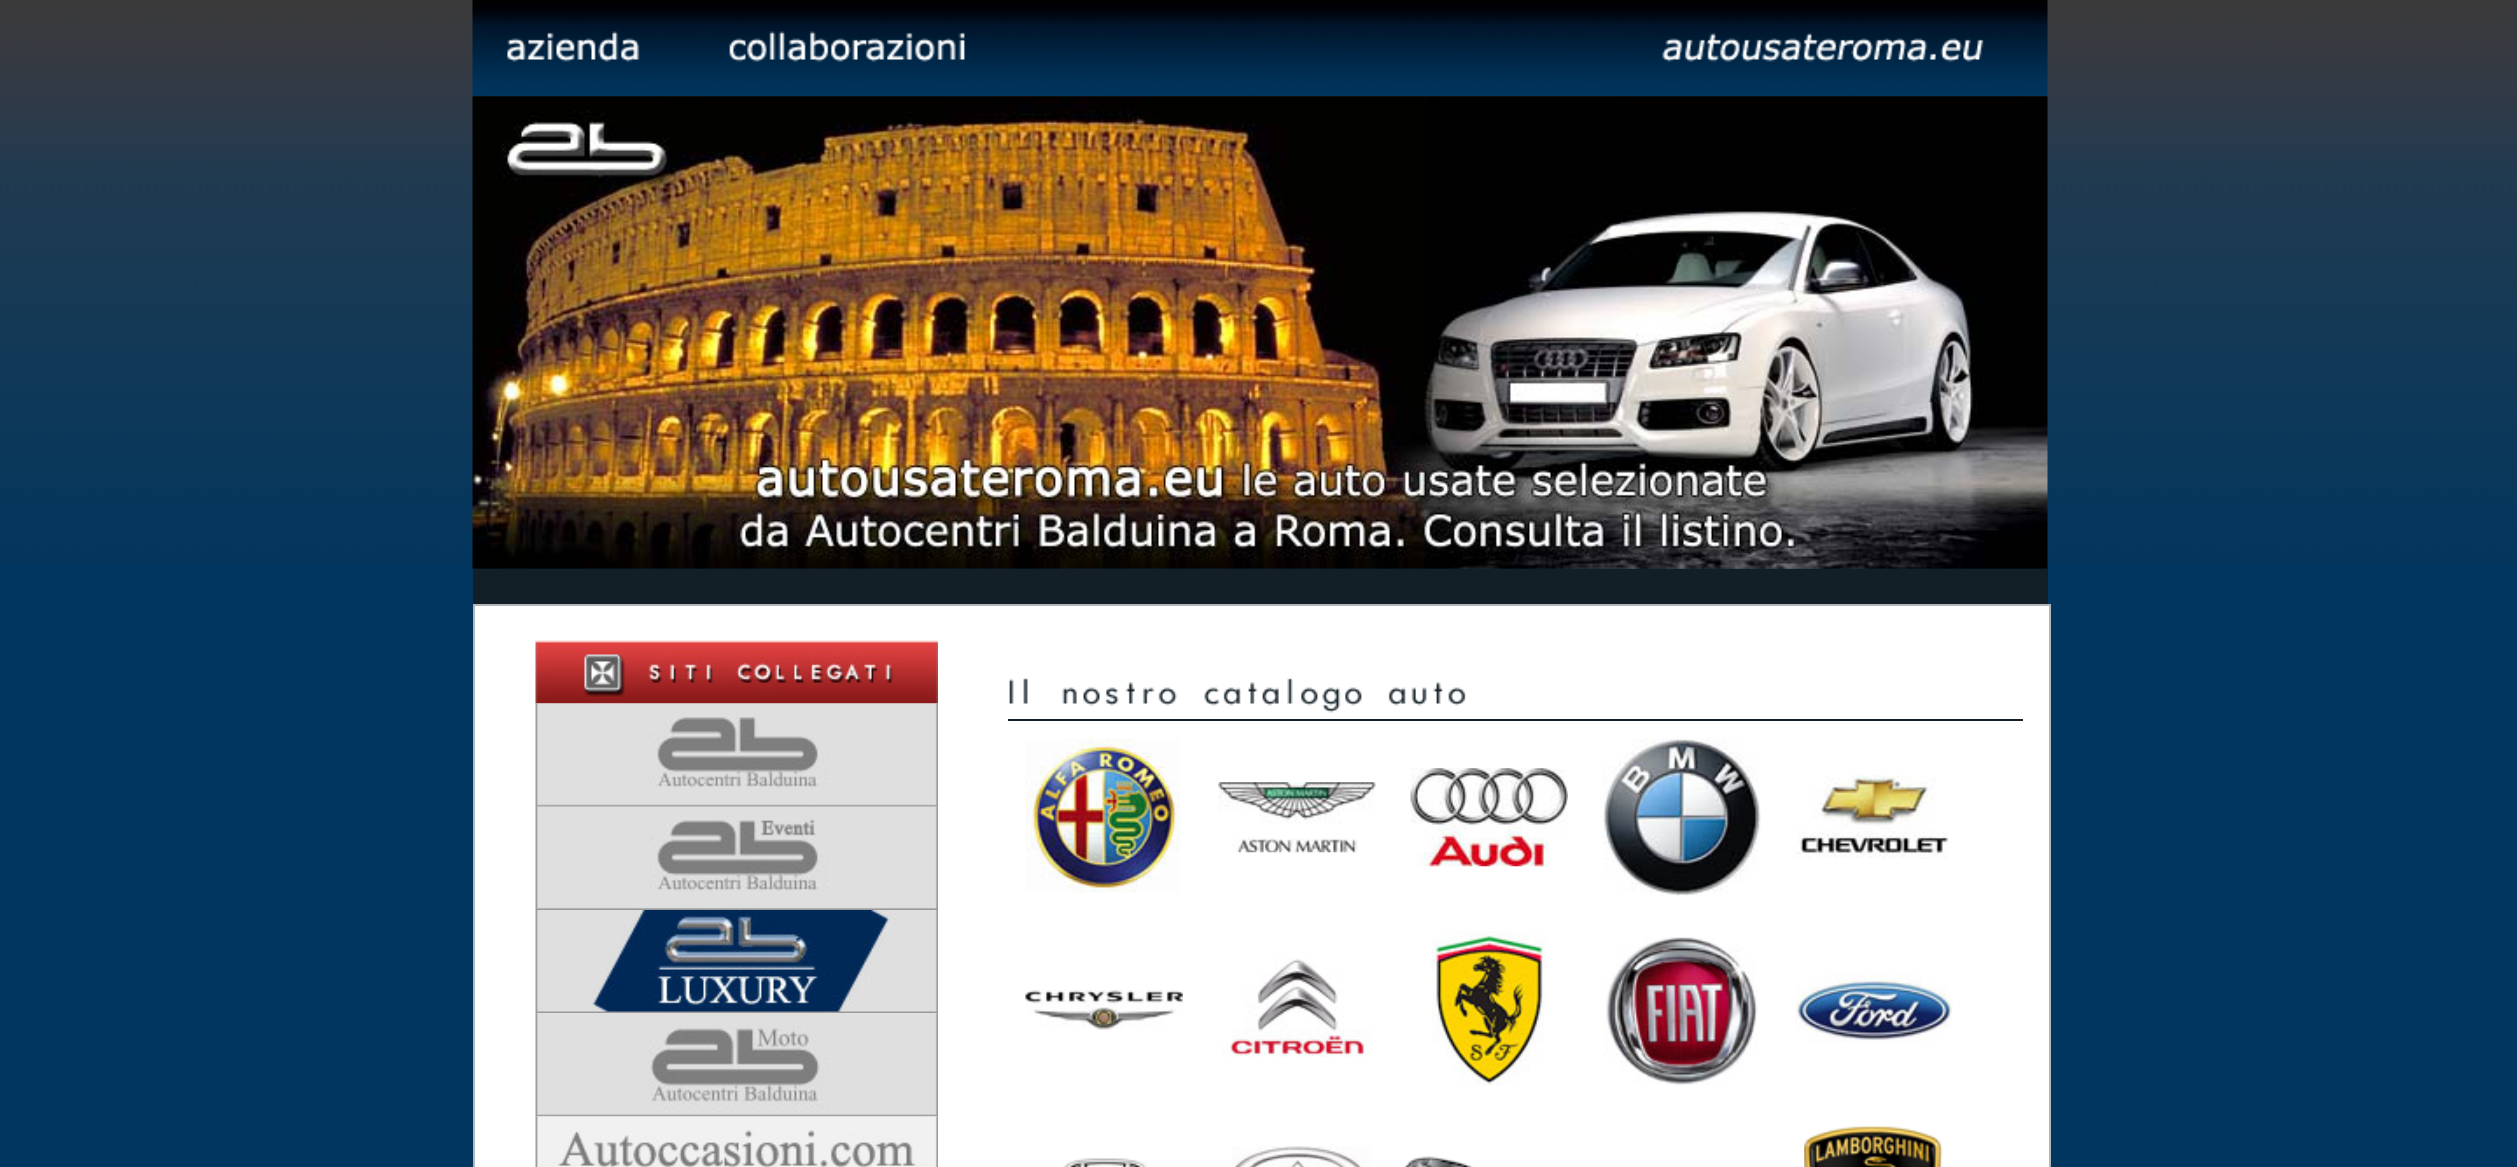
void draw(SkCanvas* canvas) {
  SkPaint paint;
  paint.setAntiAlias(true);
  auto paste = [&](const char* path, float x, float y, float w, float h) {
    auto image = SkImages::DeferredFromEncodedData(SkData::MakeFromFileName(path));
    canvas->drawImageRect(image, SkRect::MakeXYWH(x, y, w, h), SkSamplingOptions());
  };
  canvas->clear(0xff00365f);
  paste("img/1.png", 0, 0, 2517, 565);
  paste("img/2.png", 472, 0, 1576, 97);
  paste("img/3.png", 481, 31, 184, 66);
  paste("img/4.png", 700, 31, 312, 66);
  paste("img/5.png", 1619, 33, 402, 64);
  paste("img/6.png", 472, 96, 1576, 473);
  paint.setColor(0xff131f27);
  canvas->drawRect(SkRect::MakeXYWH(473, 569, 1575, 35), paint);
  paint.setColor(0xffffffff);
  canvas->drawRect(SkRect::MakeXYWH(474, 605, 1576, 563), paint);
  paint.setStroke(true);
  paint.setStrokeWidth(2);
  paint.setColor(0xffb3b5b6);
  canvas->drawRect(SkRect::MakeXYWH(474, 605, 1576, 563), paint);
  paste("img/7.png", 535, 640, 403, 64);
  paste("img/8.png", 535, 703, 403, 104);
  paste("img/9.png", 535, 806, 403, 104);
  paste("img/10.png", 535, 910, 403, 104);
  paste("img/11.png", 535, 1013, 403, 104);
  paste("img/12.png", 535, 1116, 403, 51);
  paste("img/13.png", 1009, 678, 457, 35);
  paint.setStroke(false);
  paint.setColor(0xff131f27);
  canvas->drawRect(SkRect::MakeXYWH(1008, 719, 1015, 2), paint);
  paste("img/14.png", 1025, 738, 155, 155);
  paste("img/15.png", 1218, 782, 158, 71);
  paste("img/16.png", 1410, 768, 158, 99);
  paste("img/17.png", 1603, 738, 158, 158);
  paste("img/18.png", 1795, 775, 154, 84);
  paste("img/19.png", 1025, 989, 158, 41);
  paste("img/20.png", 1222, 958, 150, 99);
  paste("img/21.png", 1431, 931, 116, 155);
  paste("img/22.png", 1603, 937, 155, 149);
  paste("img/23.png", 1795, 973, 158, 70);
  paste("img/24.png", 1063, 1158, 85, 9);
  paste("img/25.png", 1232, 1146, 140, 21);
  paste("img/26.png", 1404, 1156, 70, 11);
  paste("img/27.png", 1804, 1126, 139, 41);
}
